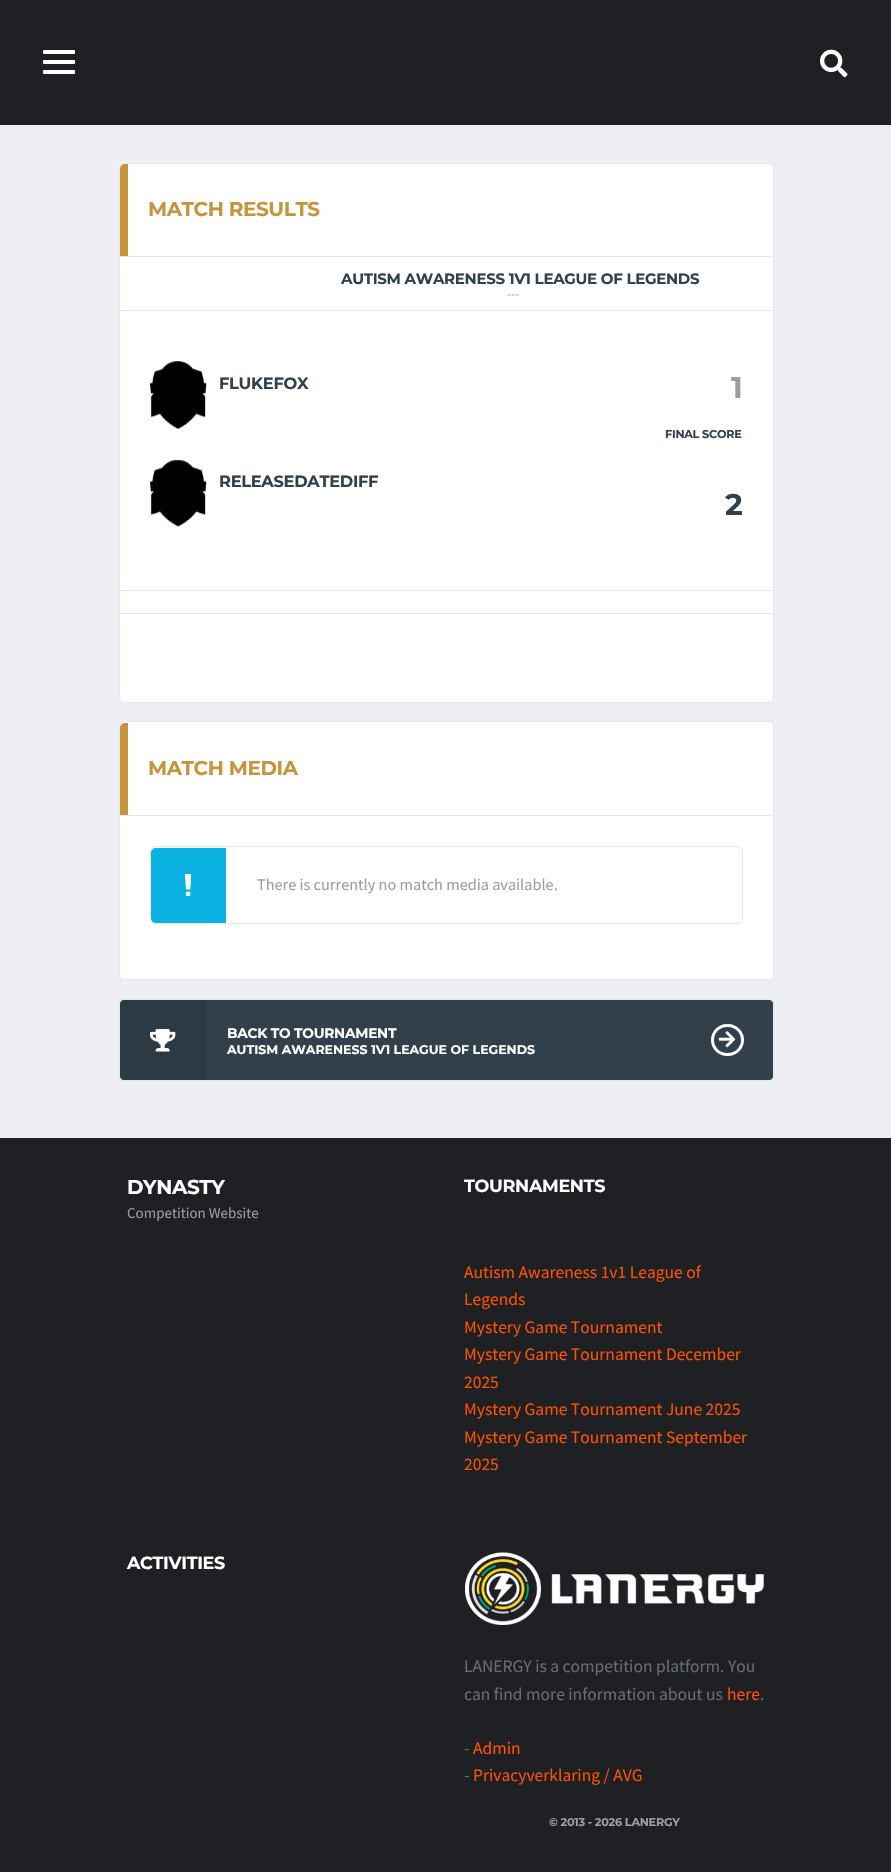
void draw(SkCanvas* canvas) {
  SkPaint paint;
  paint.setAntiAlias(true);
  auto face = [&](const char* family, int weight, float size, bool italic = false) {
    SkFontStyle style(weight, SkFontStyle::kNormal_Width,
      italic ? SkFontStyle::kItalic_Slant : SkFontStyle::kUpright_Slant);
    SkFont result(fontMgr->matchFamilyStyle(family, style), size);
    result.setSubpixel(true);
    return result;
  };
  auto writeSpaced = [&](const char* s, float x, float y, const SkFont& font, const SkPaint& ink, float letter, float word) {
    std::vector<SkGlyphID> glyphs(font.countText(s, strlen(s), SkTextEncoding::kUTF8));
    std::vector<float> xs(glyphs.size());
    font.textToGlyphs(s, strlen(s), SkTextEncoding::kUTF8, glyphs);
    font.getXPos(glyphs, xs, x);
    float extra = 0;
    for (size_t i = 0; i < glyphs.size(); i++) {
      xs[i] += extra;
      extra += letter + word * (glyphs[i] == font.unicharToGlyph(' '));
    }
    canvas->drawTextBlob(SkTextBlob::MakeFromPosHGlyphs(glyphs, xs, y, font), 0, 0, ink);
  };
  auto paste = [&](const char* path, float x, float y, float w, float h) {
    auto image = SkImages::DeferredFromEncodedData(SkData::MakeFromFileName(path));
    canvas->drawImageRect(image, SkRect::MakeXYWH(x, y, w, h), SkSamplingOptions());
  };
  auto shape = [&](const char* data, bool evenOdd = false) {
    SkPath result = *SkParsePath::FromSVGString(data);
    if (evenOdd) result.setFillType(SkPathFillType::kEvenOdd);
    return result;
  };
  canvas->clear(0xffedeff4);
  paint.setColor(0xff1e2024);
  canvas->drawRect(SkRect::MakeXYWH(0, 0, 891, 125), paint);
  paint.setColor(0xffffffff);
  canvas->drawRoundRect(SkRect::MakeXYWH(43, 50, 32, 4), 1, 1, paint);
  canvas->drawRoundRect(SkRect::MakeXYWH(43, 60, 32, 4), 1, 1, paint);
  canvas->drawRoundRect(SkRect::MakeXYWH(43, 70, 32, 4), 1, 1, paint);
  paste("img/1.png", 820, 49, 28, 29);
  canvas->drawRoundRect(SkRect::MakeXYWH(119.5f, 163.5f, 654, 539), 4.5f, 4.5f, paint);
  paint.setStroke(true);
  paint.setStrokeWidth(1);
  paint.setColor(0xffe4e7ed);
  canvas->drawRoundRect(SkRect::MakeXYWH(119.5f, 163.5f, 654, 539), 4.5f, 4.5f, paint);
  paint.setStroke(false);
  paint.setColor(0xffc5953c);
  canvas->drawPath(shape("M125 164H128V256H120V169C120 166 122 164 125 164Z"), paint);
  paint.setColor(0xffe4e7ed);
  canvas->drawRect(SkRect::MakeXYWH(120, 256, 653, 1), paint);
  canvas->drawRect(SkRect::MakeXYWH(120, 310, 653, 1), paint);
  paste("img/2.png", 150, 361, 57, 69);
  paste("img/3.png", 150, 459, 57, 68);
  canvas->drawRect(SkRect::MakeXYWH(120, 590, 653, 1), paint);
  canvas->drawRect(SkRect::MakeXYWH(120, 613, 653, 1), paint);
  paint.setColor(0xffffffff);
  canvas->drawRoundRect(SkRect::MakeXYWH(119.5f, 721.5f, 654, 258), 4.5f, 4.5f, paint);
  paint.setStroke(true);
  paint.setColor(0xffe4e7ed);
  canvas->drawRoundRect(SkRect::MakeXYWH(119.5f, 721.5f, 654, 258), 4.5f, 4.5f, paint);
  paint.setStroke(false);
  canvas->drawRect(SkRect::MakeXYWH(120, 815, 653, 1), paint);
  paint.setColor(0xffc5953c);
  canvas->drawPath(shape("M125 723H128V815H120V728C120 725 122 723 125 723Z"), paint);
  paint.setStroke(true);
  paint.setColor(0xffe4e7ed);
  canvas->drawRoundRect(SkRect::MakeXYWH(150.5f, 846.5f, 592, 77), 4.5f, 4.5f, paint);
  paint.setStroke(false);
  paint.setColor(0xff0cb2e2);
  canvas->drawPath(shape("M156 848H226V923H156C153 923 151 921 151 918V853C151 850 153 848 156 848Z"), paint);
  paste("img/4.png", 185, 874, 6, 22);
  paint.setColor(0xff31404b);
  canvas->drawRoundRect(SkRect::MakeXYWH(119.5f, 999.5f, 654, 81), 4.5f, 4.5f, paint);
  paint.setStroke(true);
  paint.setColor(0xffe4e7ed);
  canvas->drawRoundRect(SkRect::MakeXYWH(119.5f, 999.5f, 654, 81), 4.5f, 4.5f, paint);
  paint.setStroke(false);
  paint.setColor(0x1a000000);
  canvas->drawPath(shape("M124 1000H205V1080H124C122 1080 120 1078 120 1076V1004C120 1002 122 1000 124 1000Z"), paint);
  paste("img/5.png", 150, 1029, 26, 23);
  paint.setStroke(true);
  paint.setStrokeWidth(3);
  paint.setColor(0xffffffff);
  canvas->drawRoundRect(SkRect::MakeXYWH(712.5f, 1025.5f, 30, 29), 14.5f, 14.5f, paint);
  paste("img/6.png", 718, 1031, 18, 17);
  paint.setStroke(false);
  paint.setColor(0xff1e2024);
  canvas->drawRect(SkRect::MakeXYWH(0, 1138, 891, 734), paint);
  paste("img/7.png", 465, 1552, 299, 73);
  auto f0 = face("Montserrat", 700, 20);
  paint.setColor(0xffc5953c);
  writeSpaced("MATCH RESULTS", 148, 216, f0, paint, -0.4f, 0);
  auto f1 = face("Montserrat", 700, 15);
  paint.setColor(0xff31404b);
  writeSpaced("AUTISM AWARENESS 1V1 LEAGUE OF LEGENDS", 341, 284, f1, paint, -0.3f, 0);
  auto f2 = face("Montserrat", 400, 11.25f);
  paint.setColor(0xff9a9da2);
  writeSpaced("---", 507, 298, f2, paint, -0.25f, 0);
  auto f3 = face("Montserrat", 700, 16.25f);
  paint.setColor(0xff31404b);
  writeSpaced("FLUKEFOX", 219, 389, f3, paint, -0.3f, 0);
  auto f4 = face("Montserrat", 700, 30);
  paint.setColor(0xff9a9da2);
  writeSpaced("1", 731, 398, f4, paint, -1, 0);
  paint.setColor(0xff31404b);
  writeSpaced("2", 725, 515, f4, paint, -1, 0);
  auto f5 = face("Montserrat", 700, 11.25f);
  writeSpaced("FINAL SCORE", 665, 438, f5, paint, -0.25f, 0);
  writeSpaced("RELEASEDATEDIFF", 219, 487, f3, paint, -0.3f, 0);
  paint.setColor(0xffc5953c);
  writeSpaced("MATCH MEDIA", 148, 775, f0, paint, -0.4f, 0);
  auto f6 = face("Source Sans Pro", 400, 16.25f);
  paint.setColor(0xff9a9da2);
  canvas->drawString("There is currently no match media available.", 257, 890, f6, paint);
  auto f7 = face("Montserrat", 700, 13.75f);
  paint.setColor(0xffffffff);
  writeSpaced("BACK TO TOURNAMENT", 227, 1038, f7, paint, -0.25f, 0);
  auto f8 = face("Montserrat", 700, 12.5f);
  canvas->drawString("AUTISM AWARENESS 1V1 LEAGUE OF LEGENDS", 227, 1054, f8, paint);
  writeSpaced("DYNASTY", 127, 1194, f0, paint, -0.4f, 0);
  auto f9 = face("Source Sans Pro", 400, 15);
  paint.setColor(0xff9a9da2);
  canvas->drawString("Competition Website", 127, 1218, f9, paint);
  auto f10 = face("Montserrat", 700, 17.5f);
  paint.setColor(0xffffffff);
  writeSpaced("TOURNAMENTS", 464, 1192, f10, paint, -0.3f, 0);
  auto f11 = face("Source Sans Pro", 400, 17.5f);
  paint.setColor(0xffff5200);
  {
    const struct { const char* s; float x, y; } items[] = {
      {"Autism Awareness 1v1 League of", 464, 1278},
      {"Legends", 464, 1305},
      {"Mystery Game Tournament", 464, 1333},
      {"Mystery Game Tournament December", 464, 1360},
      {"2025", 464, 1388},
      {"Mystery Game Tournament June 2025", 464, 1415},
      {"Mystery Game Tournament September", 464, 1443},
      {"2025", 464, 1470},
    };
    for (auto [s, x, y] : items) {
      canvas->drawString(s, x, y, f11, paint);
    }
  }
  paint.setColor(0xffffffff);
  writeSpaced("ACTIVITIES", 127, 1569, f10, paint, -0.3f, 0);
  paint.setColor(0xff686b70);
  canvas->drawString("LANERGY is a competition platform. You", 464, 1672, f11, paint);
  canvas->drawString("can find more information about us", 464, 1700, f11, paint);
  paint.setColor(0xffff5200);
  canvas->drawString("here", 727, 1700, f11, paint);
  paint.setColor(0xff686b70);
  canvas->drawString(".", 760, 1700, f11, paint);
  canvas->drawString("-", 464, 1754, f11, paint);
  paint.setColor(0xffff5200);
  canvas->drawString("Admin", 473, 1754, f11, paint);
  paint.setColor(0xff686b70);
  canvas->drawString("-", 464, 1781, f11, paint);
  paint.setColor(0xffff5200);
  canvas->drawString("Privacyverklaring / AVG", 473, 1781, f11, paint);
  paint.setColor(0xff9a9da2);
  writeSpaced("© 2013 - 2026 LANERGY", 549, 1826, f5, paint, -0.25f, 0);
}
